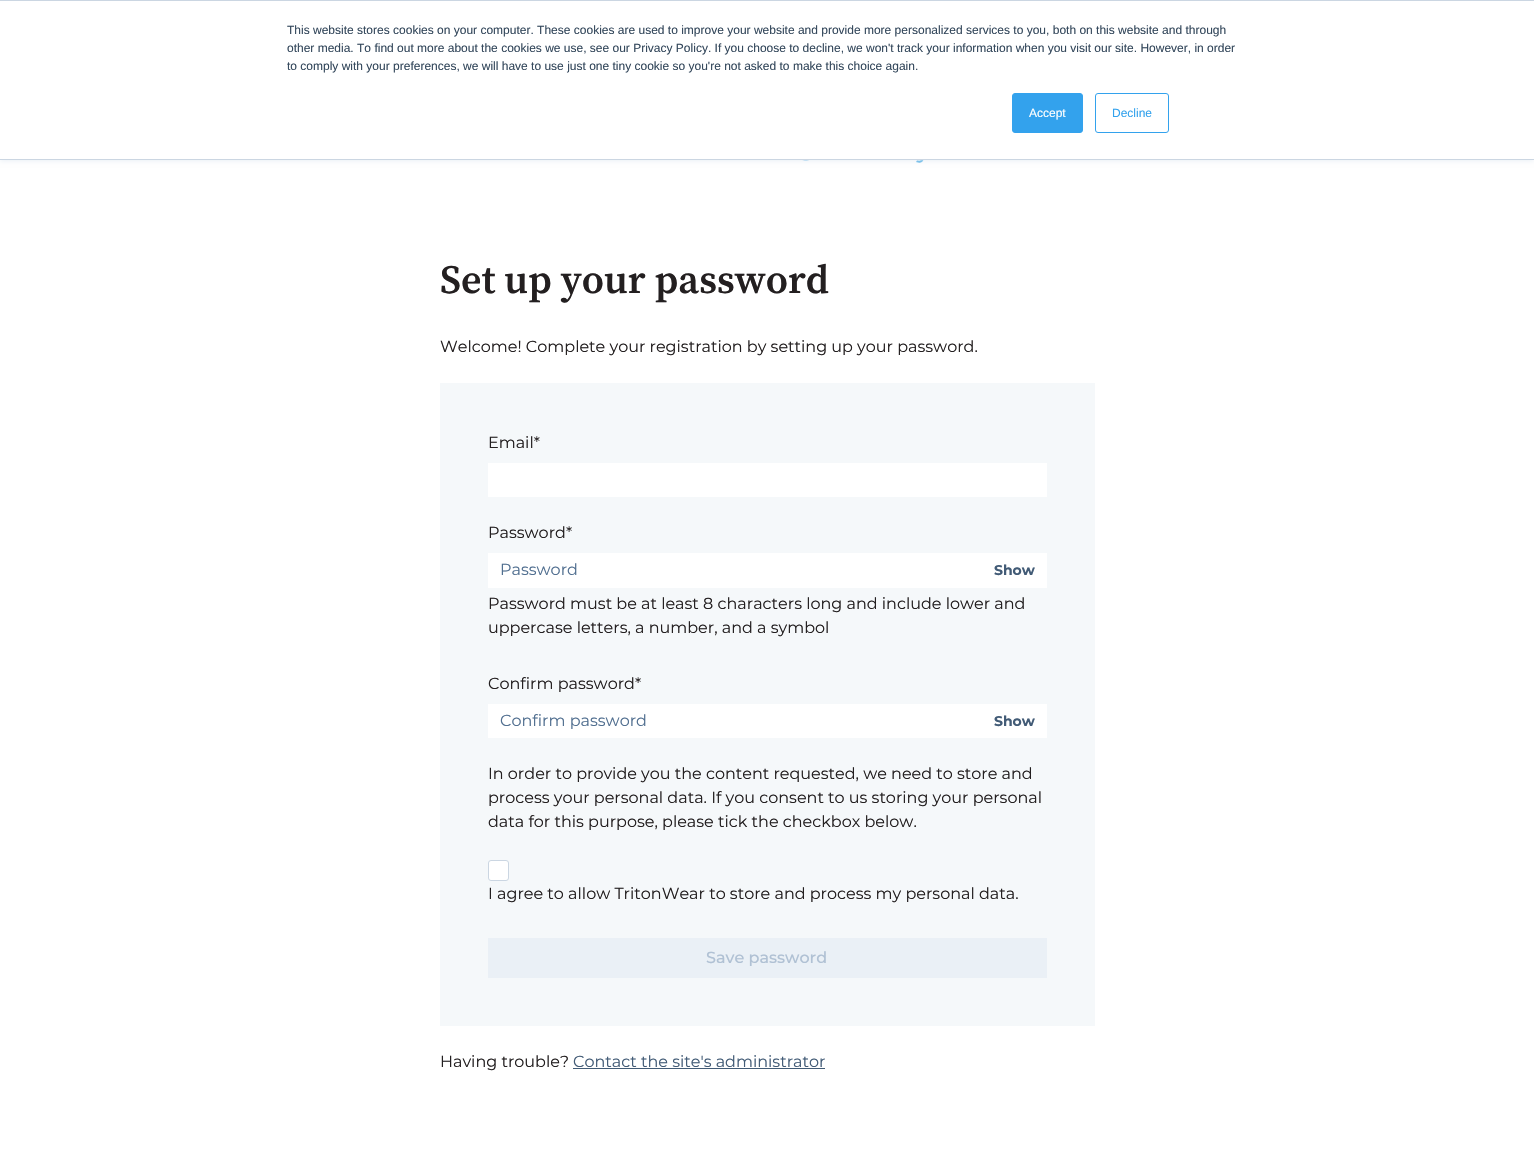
void draw(SkCanvas* canvas) {
  SkPaint paint;
  paint.setAntiAlias(true);
  auto face = [&](const char* family, int weight, float size, bool italic = false) {
    SkFontStyle style(weight, SkFontStyle::kNormal_Width,
      italic ? SkFontStyle::kItalic_Slant : SkFontStyle::kUpright_Slant);
    SkFont result(fontMgr->matchFamilyStyle(family, style), size);
    result.setSubpixel(true);
    return result;
  };
  auto paste = [&](const char* path, float x, float y, float w, float h) {
    auto image = SkImages::DeferredFromEncodedData(SkData::MakeFromFileName(path));
    canvas->drawImageRect(image, SkRect::MakeXYWH(x, y, w, h), SkSamplingOptions());
  };
  canvas->clear(0xffffffff);
  paste("img/1.png", 802, 160, 122, 3);
  paint.setColor(0xffeaf0f6);
  paint.setMaskFilter(SkMaskFilter::MakeBlur(kNormal_SkBlurStyle, 2.5f));
  canvas->drawRect(SkRect::MakeXYWH(0, 1, 1534, 160), paint);
  paint.setMaskFilter(nullptr);
  {
    const struct { float x, y, w, h; SkColor color; } items[] = {
      {0, 1, 1534, 158, 0xffffffff},
      {0, 0, 1534, 1, 0xffcbd6e2},
      {0, 159, 1534, 1, 0xffcbd6e2},
    };
    for (auto [x, y, w, h, color] : items) {
      paint.setColor(color);
      canvas->drawRect(SkRect::MakeXYWH(x, y, w, h), paint);
    }
  }
  paint.setColor(0xff33a2ed);
  canvas->drawRoundRect(SkRect::MakeXYWH(1012.5f, 93.5f, 70, 39), 2.5f, 2.5f, paint);
  paint.setStroke(true);
  paint.setStrokeWidth(1);
  canvas->drawRoundRect(SkRect::MakeXYWH(1012.5f, 93.5f, 70, 39), 2.5f, 2.5f, paint);
  canvas->drawRoundRect(SkRect::MakeXYWH(1095.5f, 93.5f, 73, 39), 2.5f, 2.5f, paint);
  paint.setStroke(false);
  {
    const struct { float x, y, w, h; SkColor color; } items[] = {
      {440, 383, 655, 643, 0xfff5f8fa},
      {488, 463, 559, 34, 0xffffffff},
      {488, 553, 559, 35, 0xffffffff},
      {488, 704, 559, 34, 0xffffffff},
    };
    for (auto [x, y, w, h, color] : items) {
      paint.setColor(color);
      canvas->drawRect(SkRect::MakeXYWH(x, y, w, h), paint);
    }
  }
  canvas->drawRoundRect(SkRect::MakeXYWH(488.5f, 860.5f, 20, 20), 2.5f, 2.5f, paint);
  paint.setStroke(true);
  paint.setColor(0xffcbd6e2);
  canvas->drawRoundRect(SkRect::MakeXYWH(488.5f, 860.5f, 20, 20), 2.5f, 2.5f, paint);
  paint.setStroke(false);
  paint.setColor(0xffeaf0f6);
  canvas->drawRect(SkRect::MakeXYWH(488, 938, 559, 40), paint);
  paint.setColor(0xff425b76);
  canvas->drawRect(SkRect::MakeXYWH(573, 1068, 252, 1), paint);
  auto f0 = face("Liberation Sans", 400, 12);
  paint.setColor(0xff33475b);
  {
    const struct { const char* s; float x, y; } items[] = {
      {"This website stores cookies on your computer. These cookies are used to improve your website and provide more personalized services to you, both on this website and through", 287, 34},
      {"other media. To find out more about the cookies we use, see our Privacy Policy. If you choose to decline, we won't track your information when you visit our site. However, in order", 287, 52},
      {"to comply with your preferences, we will have to use just one tiny cookie so you're not asked to make this choice again.", 287, 70},
    };
    for (auto [s, x, y] : items) {
      canvas->drawString(s, x, y, f0, paint);
    }
  }
  paint.setColor(0xffffffff);
  canvas->drawString("Accept", 1029, 117, f0, paint);
  paint.setColor(0xff33a2ed);
  canvas->drawString("Decline", 1112, 117, f0, paint);
  auto f1 = face("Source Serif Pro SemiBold", 600, 40);
  paint.setColor(0xff231f20);
  canvas->drawString("Set up your password", 440, 293, f1, paint);
  auto f2 = face("Montserrat", 400, 16);
  {
    const struct { const char* s; float x, y; } items[] = {
      {"Welcome! Complete your registration by setting up your password.", 440, 352},
      {"Email*", 488, 448},
      {"Password*", 488, 538},
    };
    for (auto [s, x, y] : items) {
      canvas->drawString(s, x, y, f2, paint);
    }
  }
  paint.setColor(0xff516f90);
  canvas->drawString("Password", 500, 575, f2, paint);
  auto f3 = face("Montserrat", 700, 14);
  paint.setColor(0xff425b76);
  canvas->drawString("Show", 994, 575, f3, paint);
  paint.setColor(0xff231f20);
  {
    const struct { const char* s; float x, y; } items[] = {
      {"Password must be at least 8 characters long and include lower and", 488, 609},
      {"uppercase letters, a number, and a symbol", 488, 633},
      {"Confirm password*", 488, 689},
    };
    for (auto [s, x, y] : items) {
      canvas->drawString(s, x, y, f2, paint);
    }
  }
  paint.setColor(0xff516f90);
  canvas->drawString("Confirm password", 500, 726, f2, paint);
  paint.setColor(0xff425b76);
  canvas->drawString("Show", 994, 726, f3, paint);
  paint.setColor(0xff231f20);
  {
    const struct { const char* s; float x, y; } items[] = {
      {"In order to provide you the content requested, we need to store and", 488, 779},
      {"process your personal data. If you consent to us storing your personal", 488, 803},
      {"data for this purpose, please tick the checkbox below.", 488, 827},
      {"I agree to allow TritonWear to store and process my personal data.", 488, 899},
    };
    for (auto [s, x, y] : items) {
      canvas->drawString(s, x, y, f2, paint);
    }
  }
  auto f4 = face("Montserrat", 500, 16);
  paint.setColor(0xffb0c1d4);
  canvas->drawString("Save password", 706, 963, f4, paint);
  paint.setColor(0xff231f20);
  canvas->drawString("Having trouble?", 440, 1067, f2, paint);
  paint.setColor(0xff425b76);
  canvas->drawString("Contact the site's administrator", 573, 1067, f2, paint);
}
